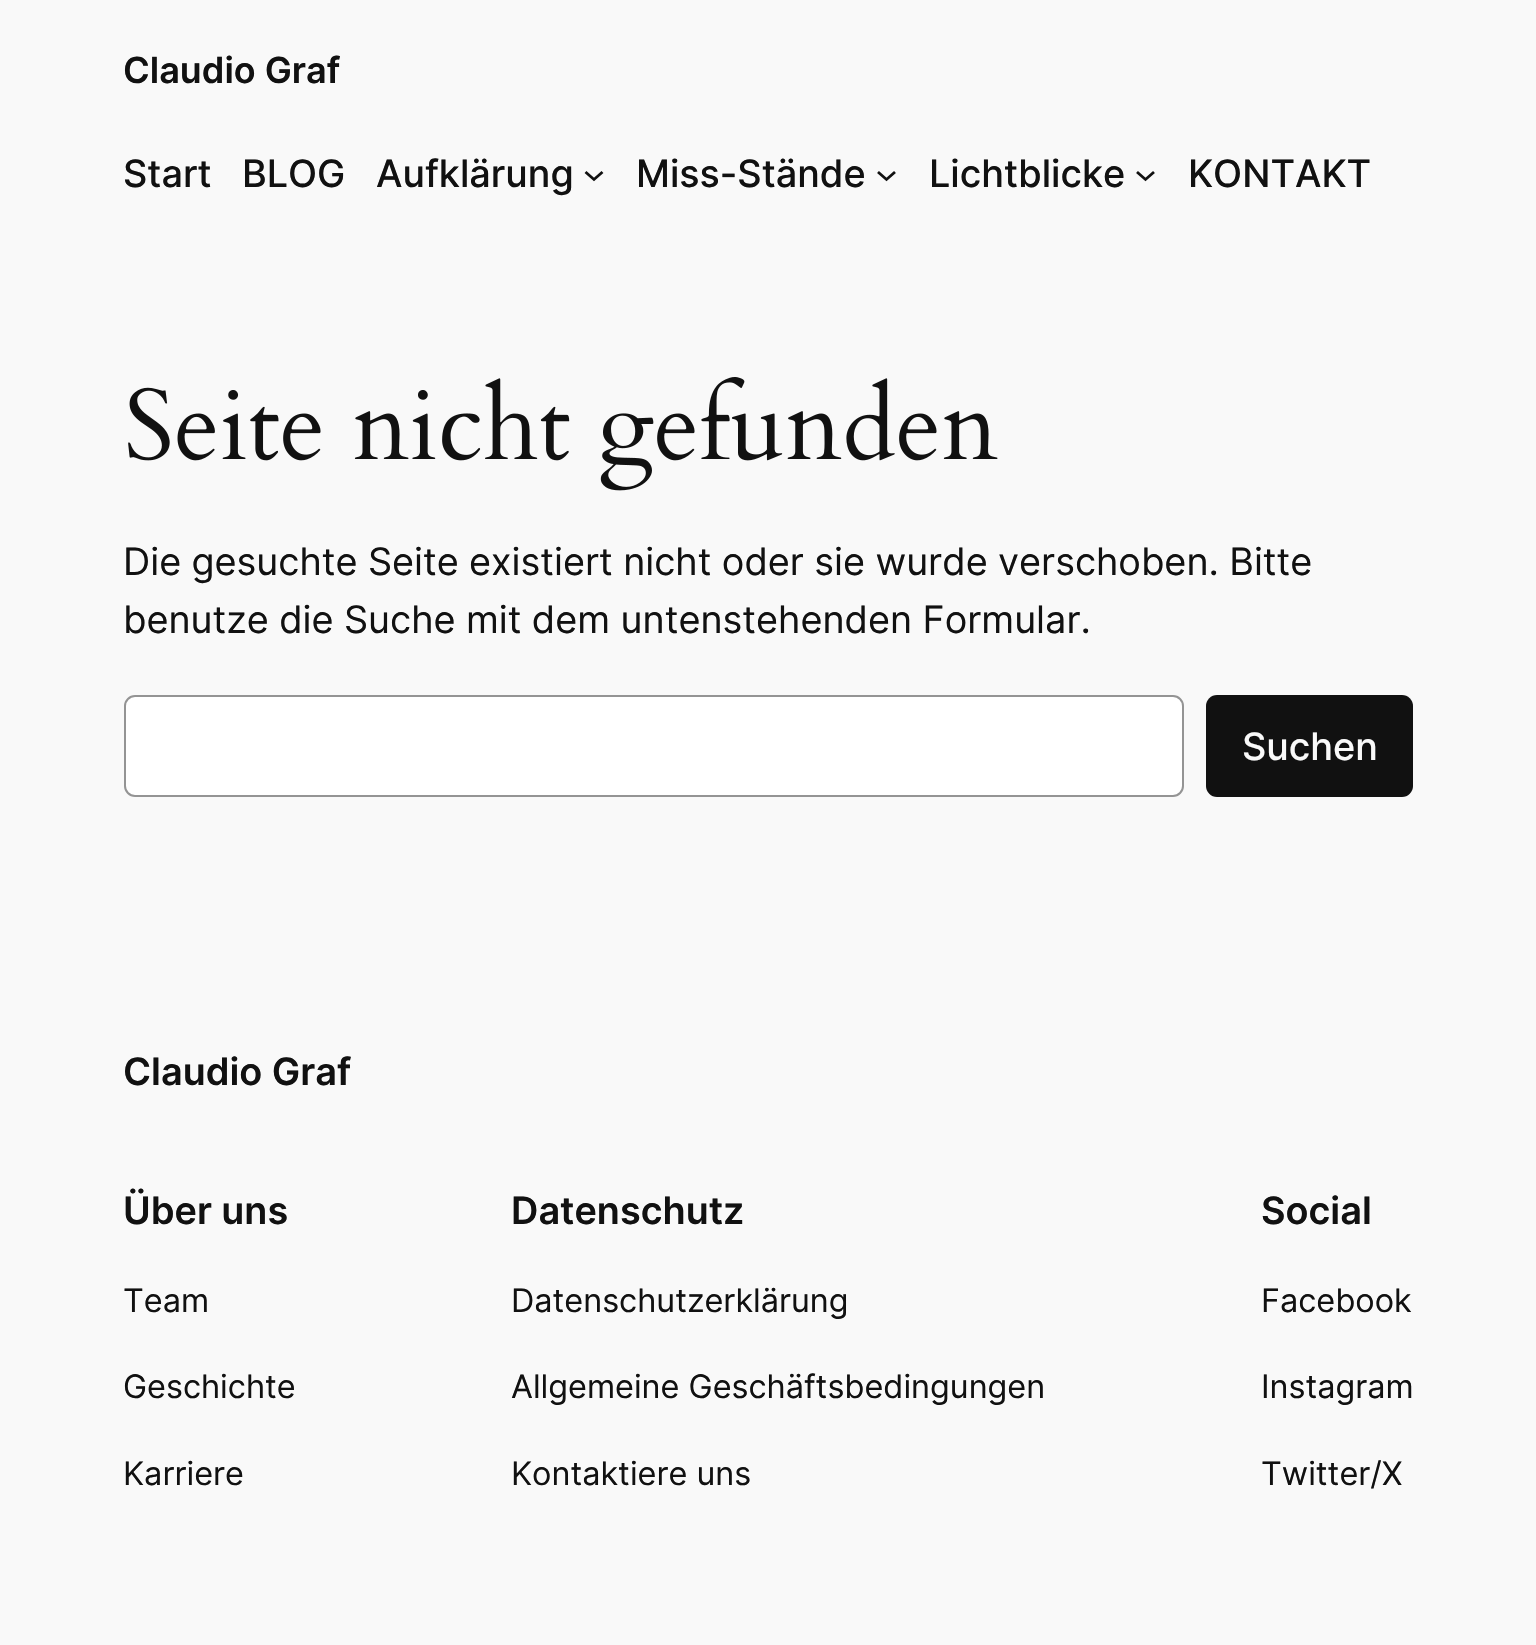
void draw(SkCanvas* canvas) {
  SkPaint paint;
  paint.setAntiAlias(true);
  auto face = [&](const char* family, int weight, float size, bool italic = false) {
    SkFontStyle style(weight, SkFontStyle::kNormal_Width,
      italic ? SkFontStyle::kItalic_Slant : SkFontStyle::kUpright_Slant);
    SkFont result(fontMgr->matchFamilyStyle(family, style), size);
    result.setSubpixel(true);
    return result;
  };
  auto writeSpaced = [&](const char* s, float x, float y, const SkFont& font, const SkPaint& ink, float letter, float word) {
    std::vector<SkGlyphID> glyphs(font.countText(s, strlen(s), SkTextEncoding::kUTF8));
    std::vector<float> xs(glyphs.size());
    font.textToGlyphs(s, strlen(s), SkTextEncoding::kUTF8, glyphs);
    font.getXPos(glyphs, xs, x);
    float extra = 0;
    for (size_t i = 0; i < glyphs.size(); i++) {
      xs[i] += extra;
      extra += letter + word * (glyphs[i] == font.unicharToGlyph(' '));
    }
    canvas->drawTextBlob(SkTextBlob::MakeFromPosHGlyphs(glyphs, xs, y, font), 0, 0, ink);
  };
  auto paste = [&](const char* path, float x, float y, float w, float h) {
    auto image = SkImages::DeferredFromEncodedData(SkData::MakeFromFileName(path));
    canvas->drawImageRect(image, SkRect::MakeXYWH(x, y, w, h), SkSamplingOptions());
  };
  auto shape = [&](const char* data, bool evenOdd = false) {
    SkPath result = *SkParsePath::FromSVGString(data);
    if (evenOdd) result.setFillType(SkPathFillType::kEvenOdd);
    return result;
  };
  canvas->clear(0xfff9f9f9);
  paint.setStroke(true);
  paint.setStrokeWidth(2.8f);
  paint.setColor(0xff111111);
  canvas->drawPath(shape("M585.5 172L594 179.5L602.5 172"), paint);
  canvas->drawPath(shape("M878 172L886.5 179.5L895 172"), paint);
  canvas->drawPath(shape("M1137 172L1145.5 179.5L1154 172"), paint);
  paste("img/1.png", 128, 377, 870, 114);
  paint.setStroke(false);
  paint.setColor(0xffffffff);
  canvas->drawRoundRect(SkRect::MakeXYWH(125, 696, 1058, 100), 10, 10, paint);
  paint.setStroke(true);
  paint.setStrokeWidth(2);
  paint.setColor(0xff949494);
  canvas->drawRoundRect(SkRect::MakeXYWH(125, 696, 1058, 100), 10, 10, paint);
  paint.setStroke(false);
  paint.setColor(0xff111111);
  canvas->drawRoundRect(SkRect::MakeXYWH(1206, 695, 207, 102), 11, 11, paint);
  auto f0 = face("Inter", 600, 36);
  canvas->drawString("Claudio Graf", 123, 83, f0, paint);
  auto f1 = face("Inter", 500, 37.8f);
  {
    const struct { const char* s; float x, y; } items[] = {
      {"Start", 123, 187},
      {"BLOG", 242, 187},
      {"Aufklärung", 376, 187},
      {"Miss-Stände", 636, 187},
      {"Lichtblicke", 929, 187},
      {"KONTAKT", 1188, 187},
    };
    for (auto [s, x, y] : items) {
      canvas->drawString(s, x, y, f1, paint);
    }
  }
  auto f2 = face("Inter", 400, 37.8f);
  writeSpaced("Die gesuchte Seite existiert nicht oder sie wurde verschoben. Bitte", 123, 575, f2, paint, 0, -0.25f);
  writeSpaced("benutze die Suche mit dem untenstehenden Formular.", 123, 633, f2, paint, 0, -0.25f);
  paint.setColor(0xfff9f9f9);
  canvas->drawString("Suchen", 1242, 760, f1, paint);
  auto f3 = face("Inter", 600, 37.8f);
  paint.setColor(0xff111111);
  canvas->drawString("Claudio Graf", 123, 1085, f3, paint);
  canvas->drawString("Über uns", 123, 1224, f3, paint);
  auto f4 = face("Inter", 400, 32.4f);
  {
    const struct { const char* s; float x, y; } items[] = {
      {"Team", 123, 1312},
      {"Geschichte", 123, 1398},
      {"Karriere", 123, 1485},
    };
    for (auto [s, x, y] : items) {
      canvas->drawString(s, x, y, f4, paint);
    }
  }
  canvas->drawString("Datenschutz", 511, 1224, f3, paint);
  {
    const struct { const char* s; float x, y; } items[] = {
      {"Datenschutzerklärung", 511, 1312},
      {"Allgemeine Geschäftsbedingungen", 511, 1398},
      {"Kontaktiere uns", 511, 1485},
    };
    for (auto [s, x, y] : items) {
      canvas->drawString(s, x, y, f4, paint);
    }
  }
  canvas->drawString("Social", 1261, 1224, f3, paint);
  {
    const struct { const char* s; float x, y; } items[] = {
      {"Facebook", 1261, 1312},
      {"Instagram", 1261, 1398},
      {"Twitter/X", 1261, 1485},
    };
    for (auto [s, x, y] : items) {
      canvas->drawString(s, x, y, f4, paint);
    }
  }
}
